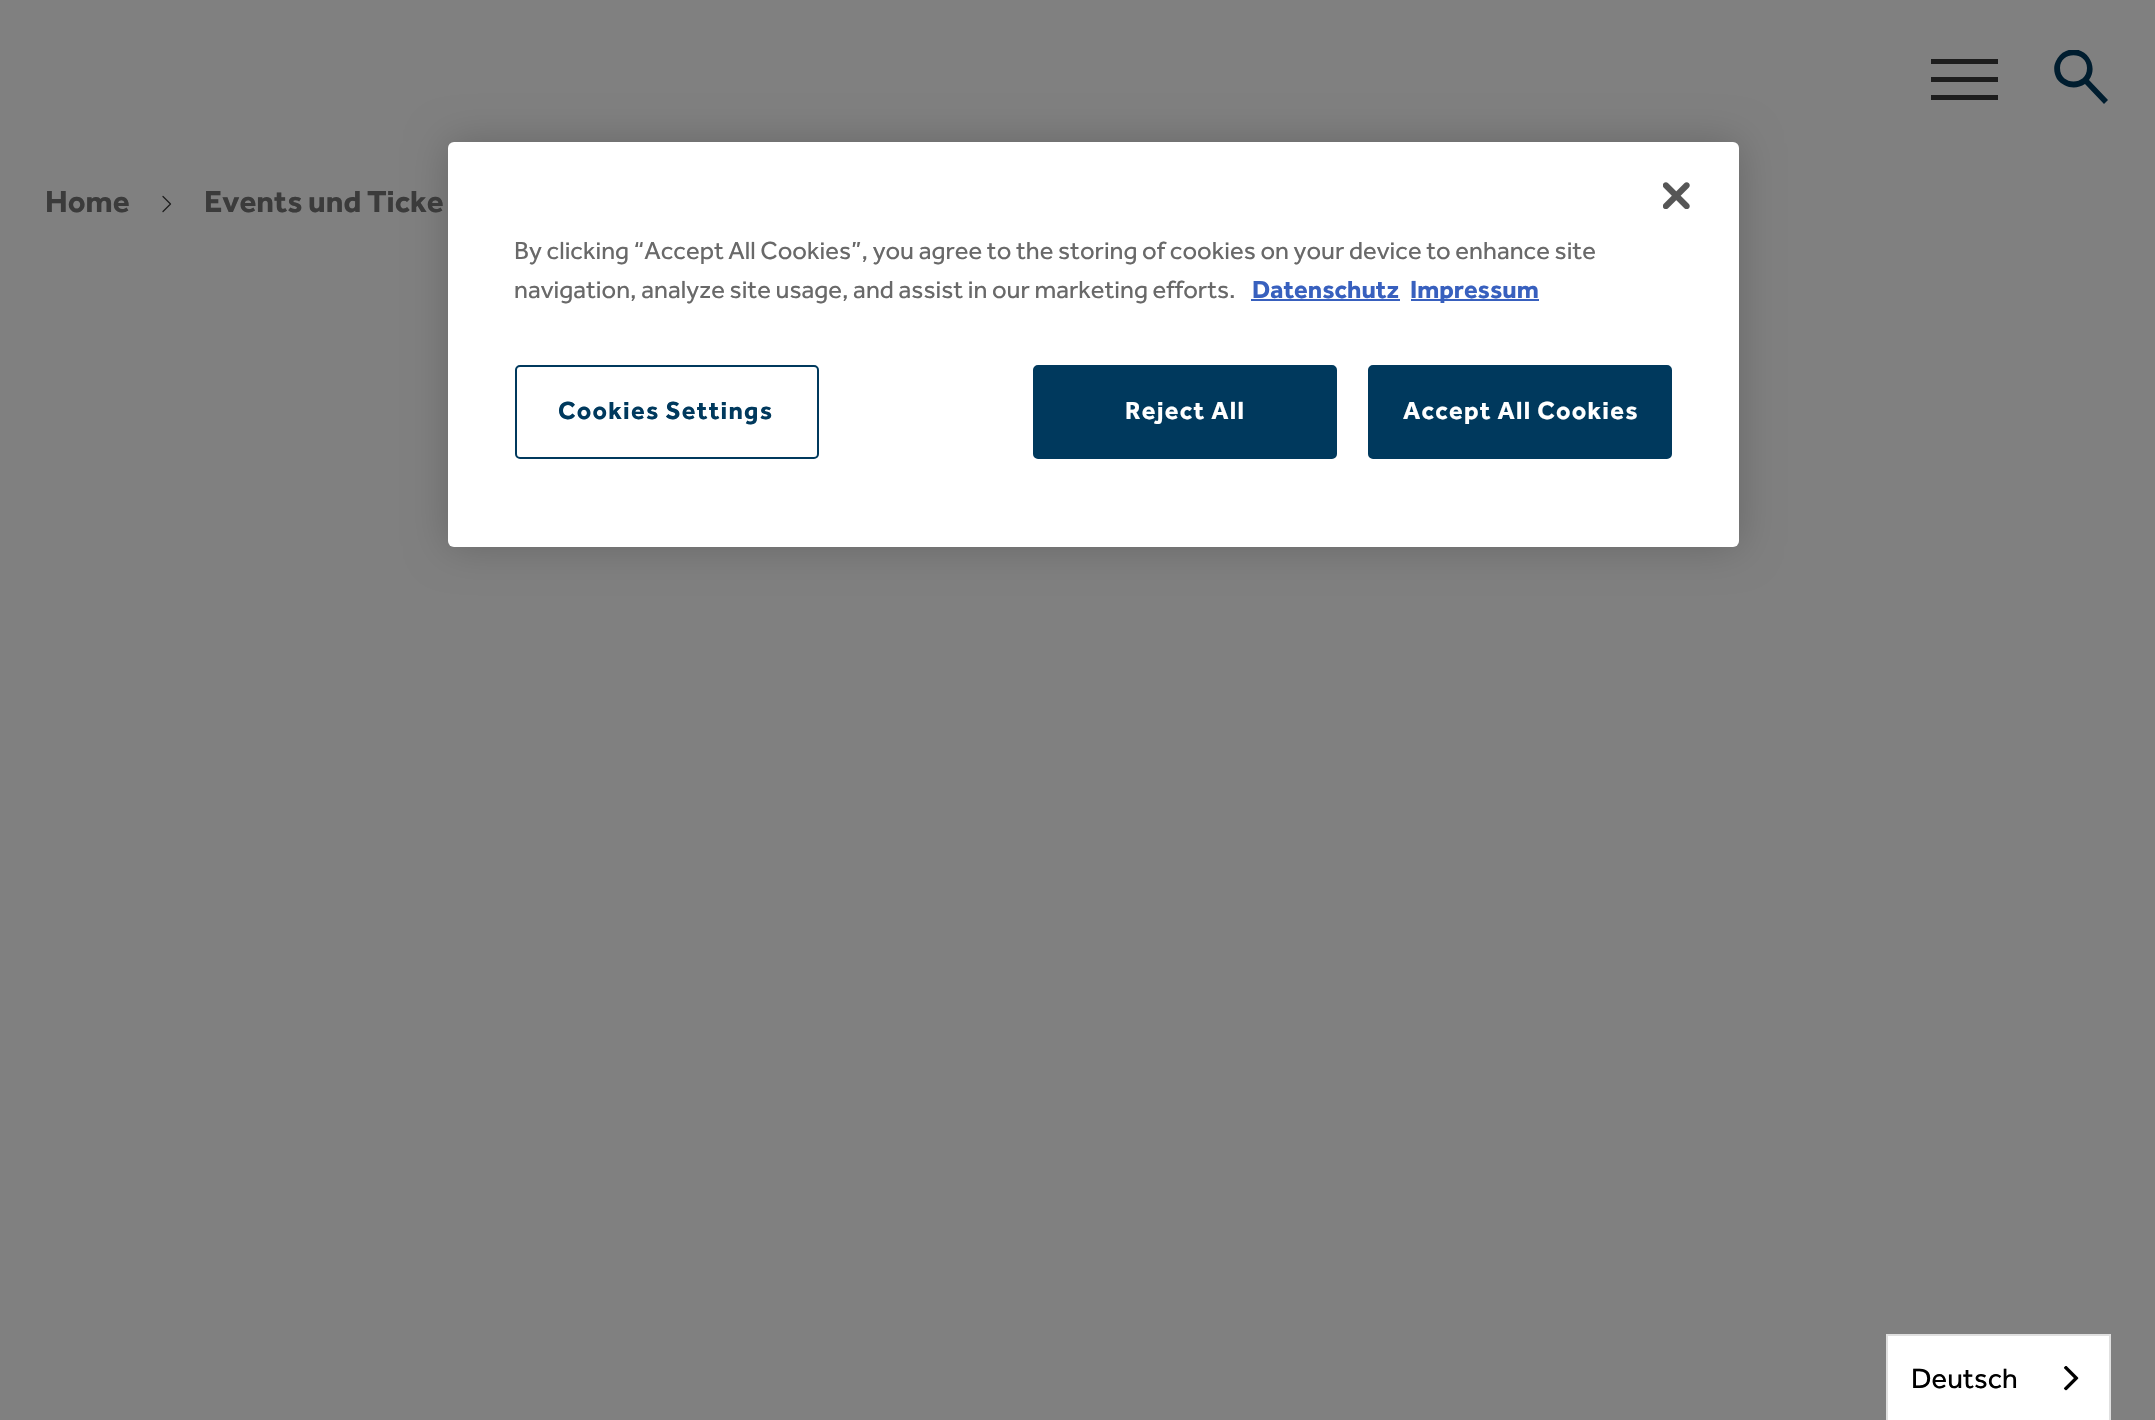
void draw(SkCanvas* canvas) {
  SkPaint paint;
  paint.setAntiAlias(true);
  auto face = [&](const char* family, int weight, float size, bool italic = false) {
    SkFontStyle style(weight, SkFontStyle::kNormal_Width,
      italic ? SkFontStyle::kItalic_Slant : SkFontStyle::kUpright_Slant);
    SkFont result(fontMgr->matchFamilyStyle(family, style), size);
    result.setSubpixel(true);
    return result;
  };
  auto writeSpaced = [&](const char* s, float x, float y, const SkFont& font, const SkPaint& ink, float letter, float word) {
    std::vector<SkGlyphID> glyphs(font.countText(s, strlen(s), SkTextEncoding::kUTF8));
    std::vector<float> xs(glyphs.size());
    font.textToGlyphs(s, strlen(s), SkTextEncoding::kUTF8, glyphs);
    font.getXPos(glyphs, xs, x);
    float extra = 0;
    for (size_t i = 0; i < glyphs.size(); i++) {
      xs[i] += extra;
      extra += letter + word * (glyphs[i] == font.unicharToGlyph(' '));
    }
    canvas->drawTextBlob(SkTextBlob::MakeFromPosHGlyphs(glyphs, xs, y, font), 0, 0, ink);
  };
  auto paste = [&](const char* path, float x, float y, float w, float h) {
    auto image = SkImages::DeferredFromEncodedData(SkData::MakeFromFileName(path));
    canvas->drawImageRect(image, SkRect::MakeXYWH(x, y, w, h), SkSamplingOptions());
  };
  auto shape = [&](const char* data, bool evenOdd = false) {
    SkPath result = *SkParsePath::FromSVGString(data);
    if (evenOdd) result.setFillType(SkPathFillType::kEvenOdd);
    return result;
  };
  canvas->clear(0xff808080);
  {
    const struct { float x, y, w, h; SkColor color; } items[] = {
      {1931, 59, 67, 5, 0xff1d1d1d},
      {1931, 77, 67, 5, 0xff1d1d1d},
      {1931, 95, 67, 5, 0xff1d1d1d},
    };
    for (auto [x, y, w, h, color] : items) {
      paint.setColor(color);
      canvas->drawRect(SkRect::MakeXYWH(x, y, w, h), paint);
    }
  }
  canvas->save();
  canvas->clipRect(SkRect::MakeXYWH(2054, 50, 57, 56));
  paint.setColor(0xff001d2f);
  canvas->drawPath(shape("M2060 68C2060 51 2087 51 2087 68C2087 86 2060 86 2060 68ZM2108 100L2089 80C2100 65 2084 43 2066 51C2061 53 2058 57 2056 61C2053 67 2054 74 2057 79C2064 88 2076 90 2085 84L2104 104Z", true), paint);
  canvas->restore();
  paint.setStroke(true);
  paint.setStrokeWidth(1.3f);
  paint.setStrokeCap(SkPaint::kRound_Cap);
  paint.setStrokeJoin(SkPaint::kRound_Join);
  paint.setColor(0xff1d1d1d);
  canvas->drawPath(shape("M163 211.5L170.5 204L163 196.5"), paint);
  paint.setStroke(false);
  paint.setColor(0x33000000);
  paint.setMaskFilter(SkMaskFilter::MakeBlur(kNormal_SkBlurStyle, 20));
  canvas->drawRoundRect(SkRect::MakeXYWH(448, 142, 1291, 405), 6, 6, paint);
  paint.setMaskFilter(nullptr);
  paint.setColor(0xffffffff);
  canvas->drawRoundRect(SkRect::MakeXYWH(448, 142, 1291, 405), 6, 6, paint);
  paste("img/1.png", 1663, 182, 27, 27);
  paint.setColor(0xff3860be);
  canvas->drawRect(SkRect::MakeXYWH(1251, 299, 149, 2), paint);
  canvas->drawRect(SkRect::MakeXYWH(1411, 299, 128, 2), paint);
  paint.setStroke(true);
  paint.setStrokeWidth(2);
  paint.setStrokeCap(SkPaint::kButt_Cap);
  paint.setStrokeJoin(SkPaint::kMiter_Join);
  paint.setColor(0xff00395d);
  canvas->drawRoundRect(SkRect::MakeXYWH(516, 366, 302, 92), 4, 4, paint);
  paint.setStroke(false);
  canvas->drawRoundRect(SkRect::MakeXYWH(1034, 366, 302, 92), 4, 4, paint);
  paint.setStroke(true);
  canvas->drawRoundRect(SkRect::MakeXYWH(1034, 366, 302, 92), 4, 4, paint);
  paint.setStroke(false);
  canvas->drawRoundRect(SkRect::MakeXYWH(1369, 366, 302, 92), 4, 4, paint);
  paint.setStroke(true);
  canvas->drawRoundRect(SkRect::MakeXYWH(1369, 366, 302, 92), 4, 4, paint);
  paint.setStroke(false);
  paint.setColor(0xffffffff);
  canvas->drawRect(SkRect::MakeXYWH(1887, 1335, 223, 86), paint);
  paint.setStroke(true);
  paint.setColor(0xffe0e0e0);
  canvas->drawRect(SkRect::MakeXYWH(1887, 1335, 223, 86), paint);
  paste("img/2.png", 2063, 1366, 16, 25);
  auto f0 = face("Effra", 700, 31.5f);
  paint.setStroke(false);
  paint.setColor(0xff3b3b3b);
  canvas->drawString("Home", 45, 212, f0, paint);
  canvas->drawString("Events und Ticke", 204, 212, f0, paint);
  auto f1 = face("Effra", 400, 25.6f);
  paint.setColor(0xff696969);
  canvas->drawString("By clicking “Accept All Cookies”, you agree to the storing of cookies on your device to enhance site", 514, 259, f1, paint);
  canvas->drawString("navigation, analyze site usage, and assist in our marketing efforts.", 514, 298, f1, paint);
  auto f2 = face("Effra", 700, 25.6f);
  paint.setColor(0xff3860be);
  canvas->drawString("Datenschutz", 1252, 298, f2, paint);
  canvas->drawString("Impressum", 1410, 298, f2, paint);
  paint.setColor(0xff00395d);
  writeSpaced("Cookies Settings", 558, 419, f2, paint, 1.25f, 0);
  paint.setColor(0xffffffff);
  writeSpaced("Reject All", 1125, 419, f2, paint, 1.25f, 0);
  writeSpaced("Accept All Cookies", 1403, 419, f2, paint, 1.25f, 0);
  auto f3 = face("Effra", 400, 29);
  paint.setColor(0xff000000);
  canvas->drawString("Deutsch", 1911, 1388, f3, paint);
}
